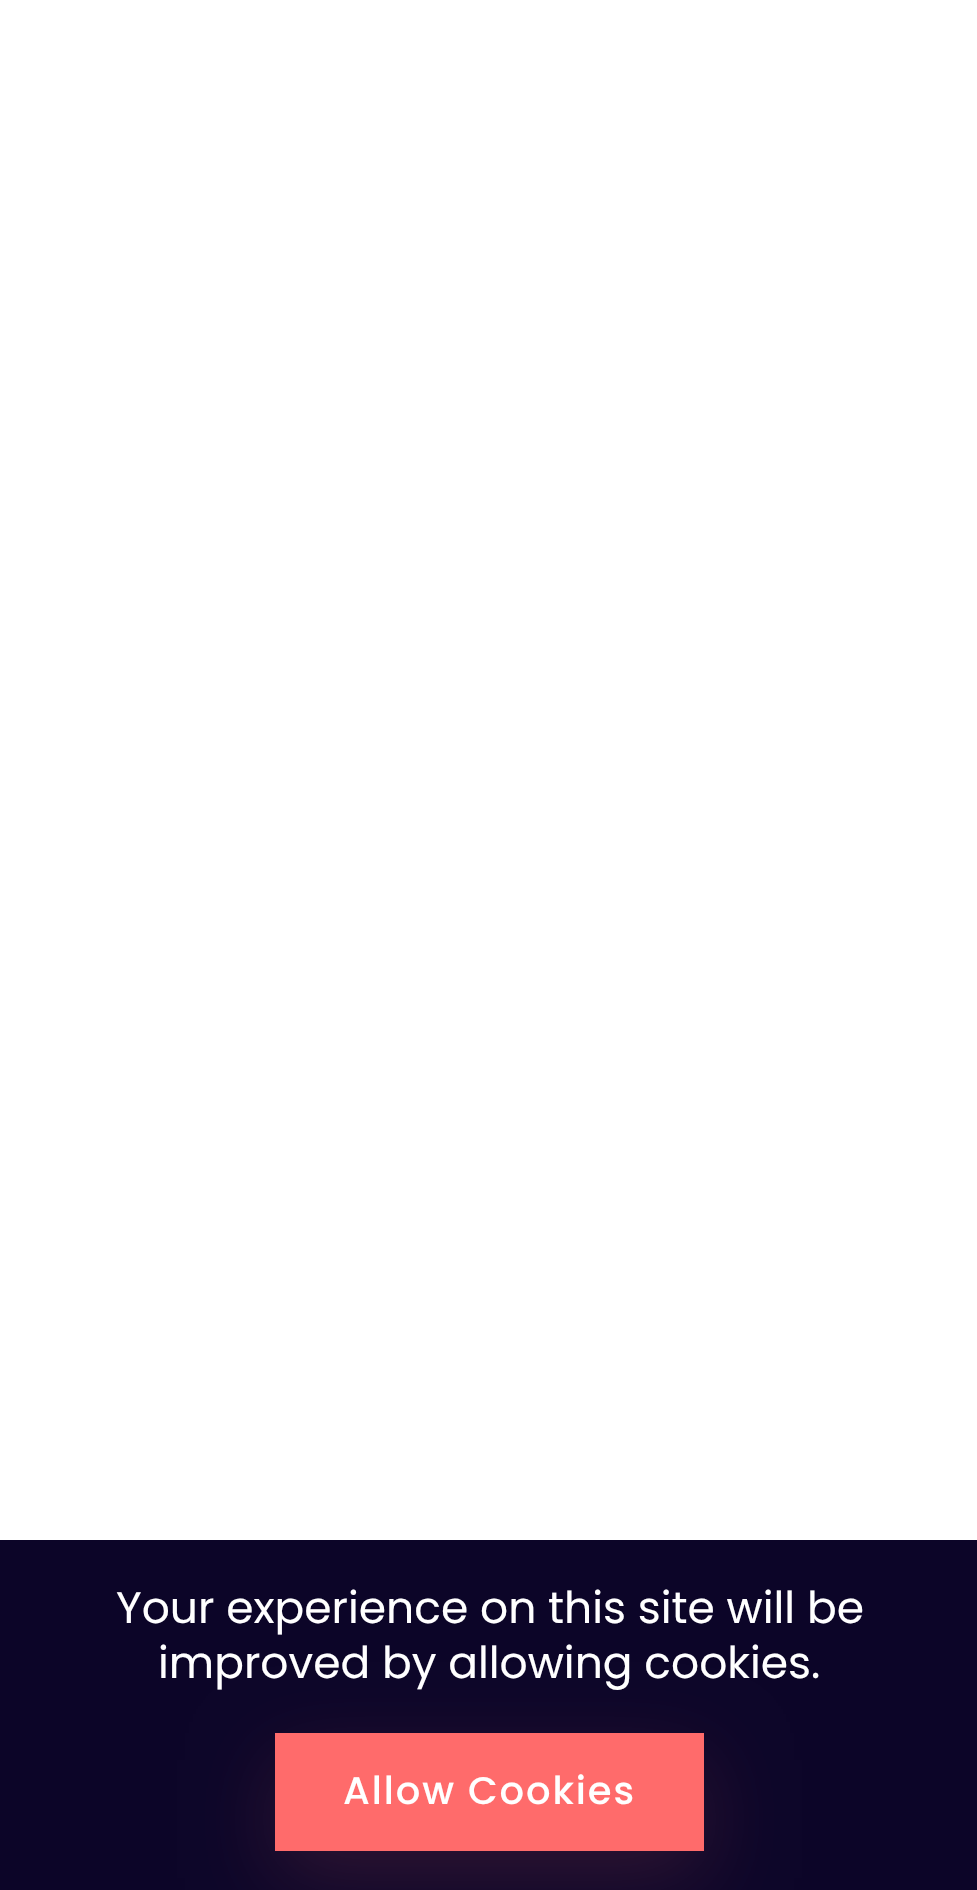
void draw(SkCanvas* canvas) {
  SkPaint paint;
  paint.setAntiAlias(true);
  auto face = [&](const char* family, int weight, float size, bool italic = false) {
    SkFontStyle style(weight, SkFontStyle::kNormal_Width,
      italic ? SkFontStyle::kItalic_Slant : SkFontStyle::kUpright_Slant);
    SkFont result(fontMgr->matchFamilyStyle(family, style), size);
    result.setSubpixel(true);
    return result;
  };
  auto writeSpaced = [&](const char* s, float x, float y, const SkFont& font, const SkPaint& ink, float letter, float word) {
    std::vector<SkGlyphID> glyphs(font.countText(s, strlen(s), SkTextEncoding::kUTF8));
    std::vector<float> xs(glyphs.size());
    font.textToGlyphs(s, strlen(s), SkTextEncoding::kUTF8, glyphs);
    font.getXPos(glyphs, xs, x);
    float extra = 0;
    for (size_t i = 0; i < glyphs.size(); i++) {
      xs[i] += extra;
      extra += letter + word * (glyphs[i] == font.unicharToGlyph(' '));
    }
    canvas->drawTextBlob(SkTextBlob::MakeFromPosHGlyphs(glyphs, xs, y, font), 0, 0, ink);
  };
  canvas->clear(0xffffffff);
  paint.setColor(0xff0c0528);
  canvas->drawRect(SkRect::MakeXYWH(0, 1540, 977, 350), paint);
  paint.setColor(0x24ff6b6b);
  paint.setMaskFilter(SkMaskFilter::MakeBlur(kNormal_SkBlurStyle, 41));
  canvas->drawRect(SkRect::MakeXYWH(275, 1760, 429, 118), paint);
  paint.setMaskFilter(nullptr);
  paint.setColor(0xffff6b6b);
  canvas->drawRect(SkRect::MakeXYWH(275, 1733, 429, 118), paint);
  auto f0 = face("Poppins", 400, 44);
  paint.setColor(0xffffffff);
  canvas->drawString("Your experience on this site will be", 116, 1623, f0, paint);
  canvas->drawString("improved by allowing cookies.", 158, 1678, f0, paint);
  auto f1 = face("Poppins", 500, 38.5f);
  writeSpaced("Allow Cookies", 343, 1804, f1, paint, 1.9f, 0);
}
